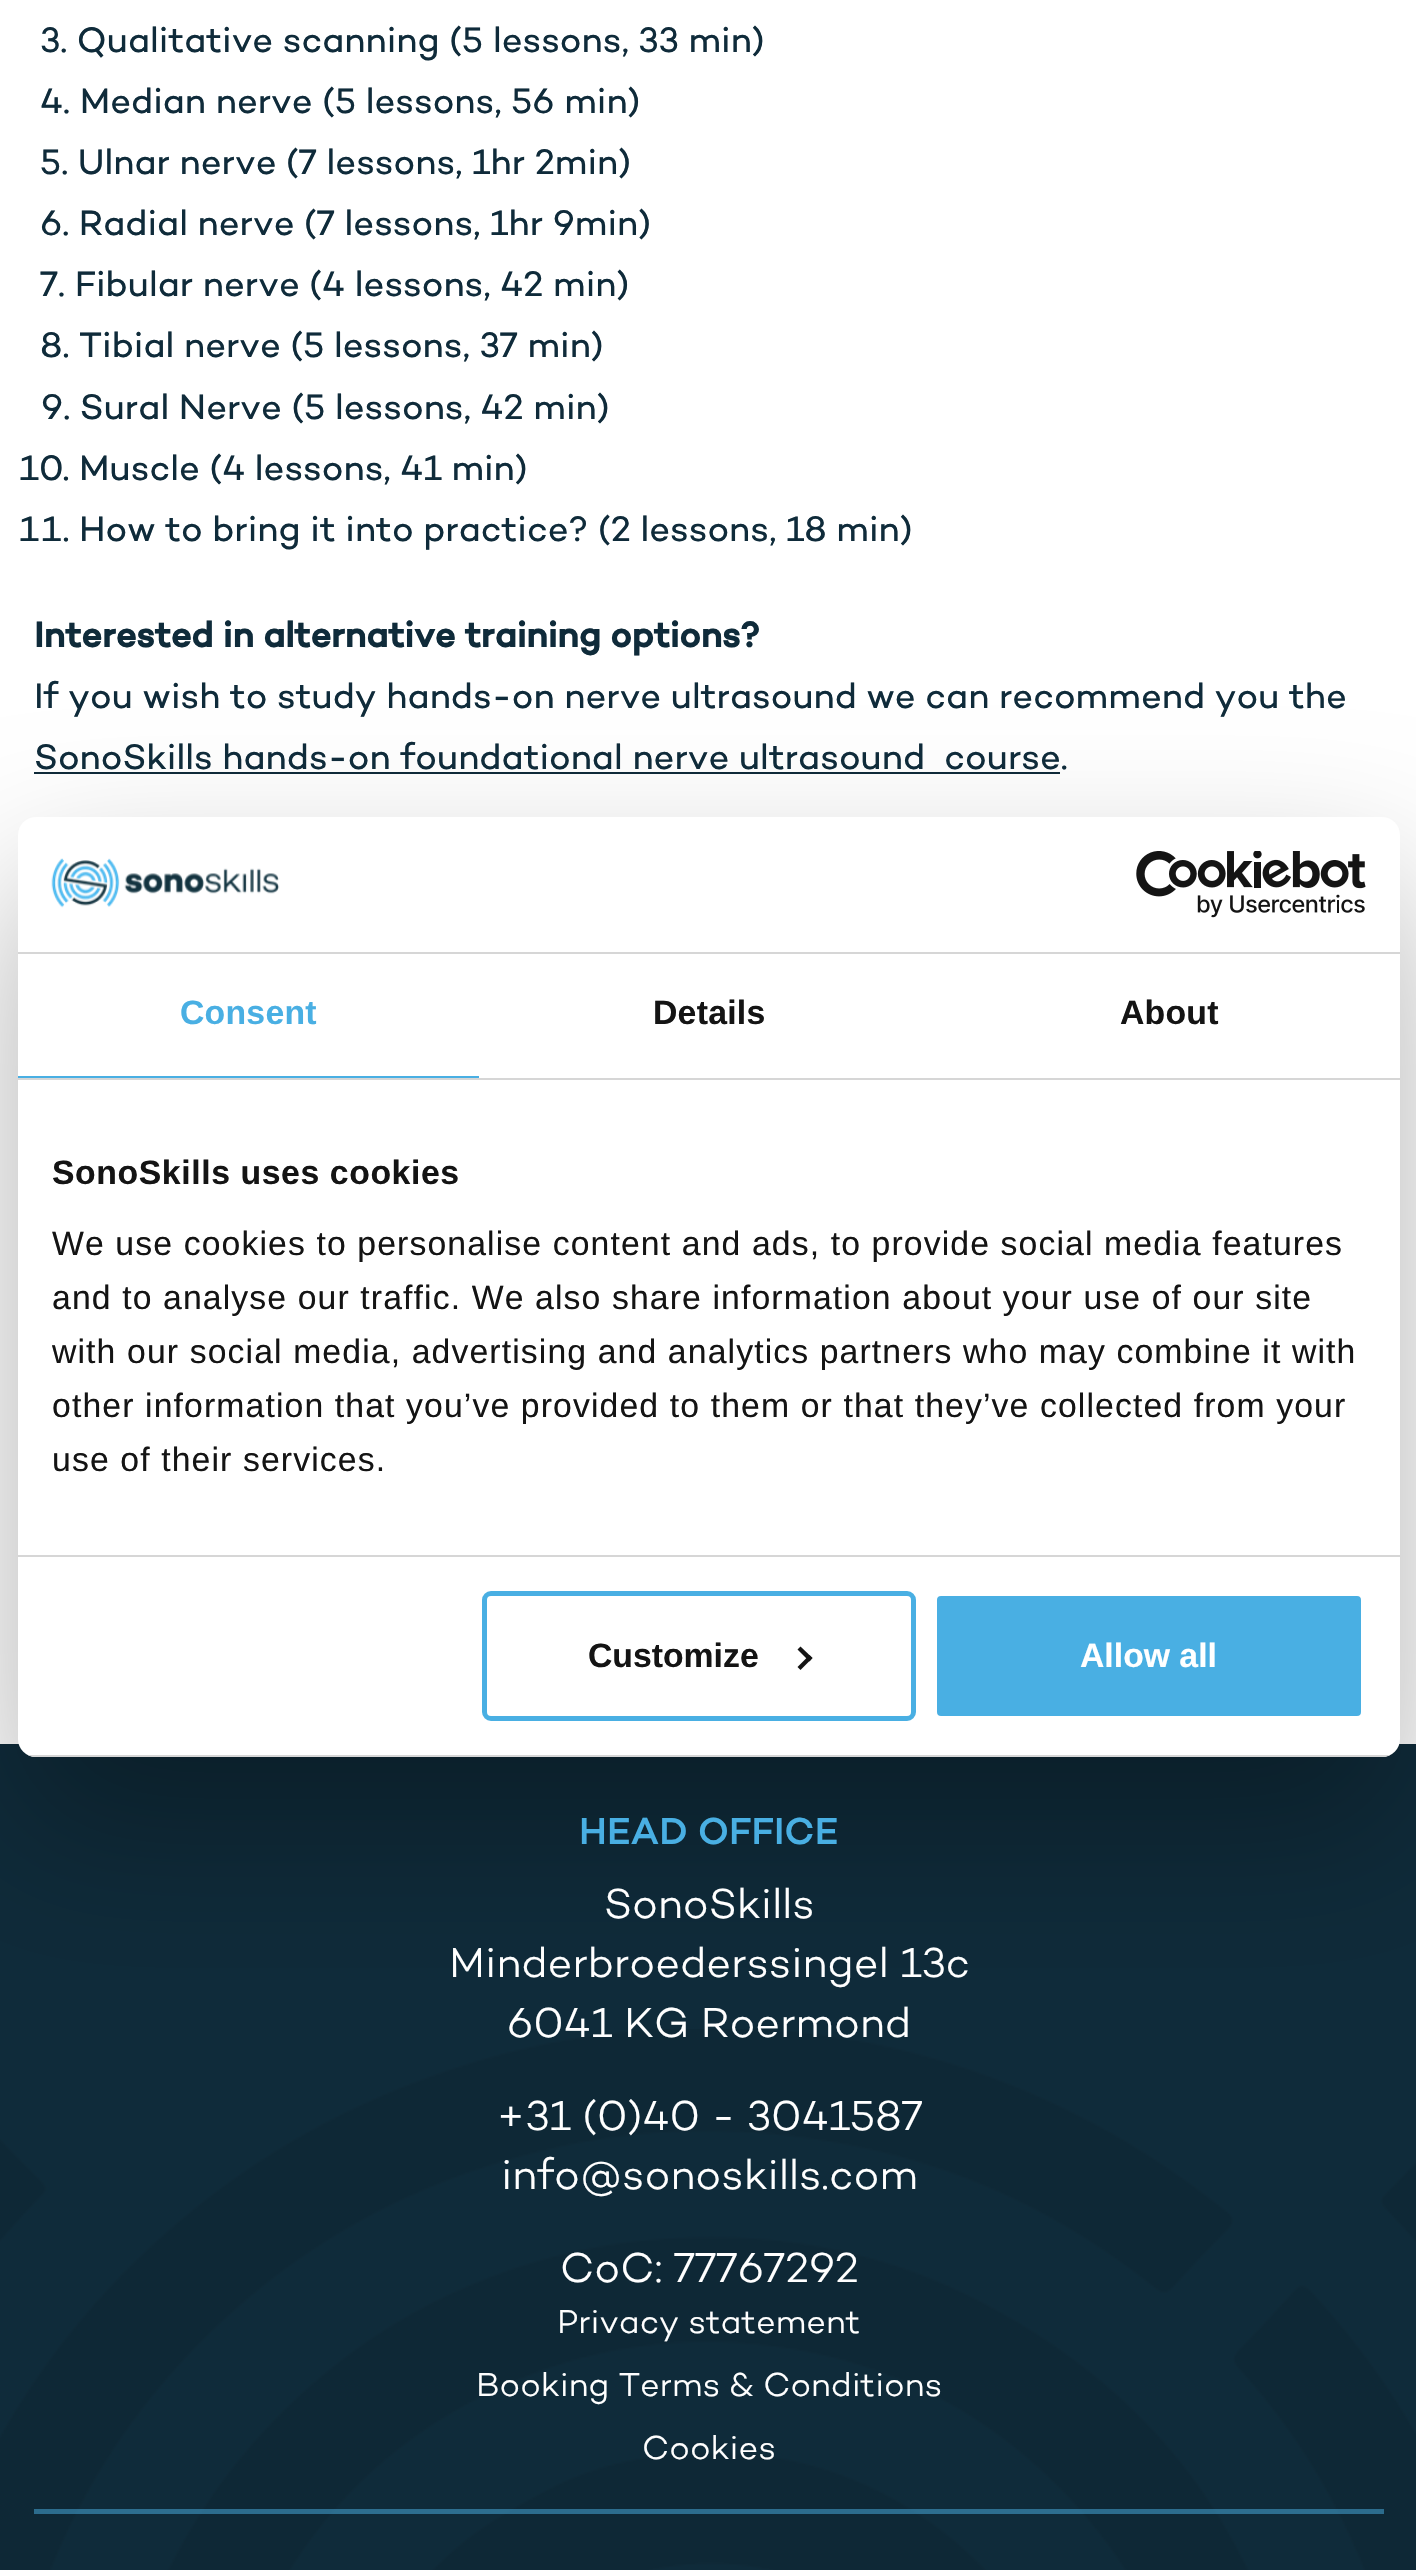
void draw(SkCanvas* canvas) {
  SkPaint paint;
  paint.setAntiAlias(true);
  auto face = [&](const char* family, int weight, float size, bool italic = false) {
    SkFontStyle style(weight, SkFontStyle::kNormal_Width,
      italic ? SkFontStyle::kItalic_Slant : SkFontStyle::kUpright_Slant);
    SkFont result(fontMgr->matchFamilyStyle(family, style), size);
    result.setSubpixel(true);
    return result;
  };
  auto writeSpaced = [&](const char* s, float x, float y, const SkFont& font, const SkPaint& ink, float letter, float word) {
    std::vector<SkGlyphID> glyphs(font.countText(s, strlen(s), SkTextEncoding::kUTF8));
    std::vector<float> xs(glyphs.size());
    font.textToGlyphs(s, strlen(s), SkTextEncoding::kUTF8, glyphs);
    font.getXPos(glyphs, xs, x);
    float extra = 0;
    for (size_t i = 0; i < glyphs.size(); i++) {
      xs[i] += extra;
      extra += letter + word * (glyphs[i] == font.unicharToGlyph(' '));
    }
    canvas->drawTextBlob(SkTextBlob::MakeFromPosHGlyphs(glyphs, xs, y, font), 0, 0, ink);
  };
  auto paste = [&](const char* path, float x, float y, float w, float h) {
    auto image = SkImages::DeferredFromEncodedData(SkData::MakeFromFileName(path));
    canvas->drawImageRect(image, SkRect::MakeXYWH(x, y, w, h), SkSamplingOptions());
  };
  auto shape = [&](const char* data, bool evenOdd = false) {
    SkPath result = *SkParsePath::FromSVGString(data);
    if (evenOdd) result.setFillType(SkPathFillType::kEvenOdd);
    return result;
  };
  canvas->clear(0xffffffff);
  paint.setColor(0xff0f2b3a);
  canvas->drawRect(SkRect::MakeXYWH(34, 772, 1026, 2), paint);
  canvas->drawRect(SkRect::MakeXYWH(0, 1744, 1416, 826), paint);
  paste("img/1.png", 0, 2029, 1416, 541);
  paint.setColor(0x8049afe3);
  canvas->drawRect(SkRect::MakeXYWH(34, 2509, 1350, 5), paint);
  paint.setColor(0x4d000000);
  paint.setMaskFilter(SkMaskFilter::MakeBlur(kNormal_SkBlurStyle, 76.5f));
  canvas->drawRoundRect(SkRect::MakeXYWH(18, 889, 1382, 940), 18, 18, paint);
  paint.setMaskFilter(nullptr);
  paint.setColor(0xffffffff);
  canvas->drawRoundRect(SkRect::MakeXYWH(18, 817, 1382, 940), 18, 18, paint);
  paint.setColor(0xffd6d6d6);
  canvas->drawRect(SkRect::MakeXYWH(18, 952, 1382, 2), paint);
  paste("img/2.png", 51, 858, 229, 50);
  paste("img/3.png", 1136, 851, 230, 67);
  {
    const struct { float x, y, w, h; SkColor color; } items[] = {
      {18, 1078, 1382, 2, 0xffd6d6d6},
      {18, 1076, 461, 2, 0xff49afe3},
      {18, 1555, 1382, 2, 0xffd6d6d6},
    };
    for (auto [x, y, w, h, color] : items) {
      paint.setColor(color);
      canvas->drawRect(SkRect::MakeXYWH(x, y, w, h), paint);
    }
  }
  canvas->save();
  canvas->clipPath(shape("M36 817H1382C1392 817 1400 825 1400 835V1739C1400 1749 1392 1757 1382 1757H36C26 1757 18 1749 18 1739V835C18 825 26 817 36 817Z"), true);
  canvas->drawRect(SkRect::MakeXYWH(28, 1755, 1362, 2), paint);
  canvas->restore();
  paint.setStroke(true);
  paint.setStrokeWidth(5);
  paint.setColor(0xff49afe3);
  canvas->drawRoundRect(SkRect::MakeXYWH(484.5f, 1593.5f, 429, 125), 6.5f, 6.5f, paint);
  paint.setStroke(false);
  paint.setColor(0xff141414);
  canvas->drawPath(shape("M800.5 1646.5L812.5 1658L809.5 1661.5L797.5 1649.5Z"), paint);
  canvas->drawPath(shape("M809.5 1655L812.5 1658L800.5 1670L797.5 1667Z"), paint);
  paint.setColor(0xff49afe3);
  canvas->drawRoundRect(SkRect::MakeXYWH(934.5f, 1593.5f, 429, 125), 6.5f, 6.5f, paint);
  paint.setStroke(true);
  paint.setColor(0xffffffff);
  canvas->drawRoundRect(SkRect::MakeXYWH(934.5f, 1593.5f, 429, 125), 6.5f, 6.5f, paint);
  auto f0 = face("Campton", 400, 36);
  paint.setStroke(false);
  paint.setColor(0xff0f2b3a);
  {
    const struct { const char* s; float x, y; } items[] = {
      {"3. Qualitative scanning (5 lessons, 33 min)", 40, 52},
      {"4. Median nerve (5 lessons, 56 min)", 40, 113},
      {"5. Ulnar nerve (7 lessons, 1hr 2min)", 40, 174},
      {"6. Radial nerve (7 lessons, 1hr 9min)", 40, 235},
      {"7. Fibular nerve (4 lessons, 42 min)", 40, 296},
      {"8. Tibial nerve (5 lessons, 37 min)", 40, 357},
      {"9. Sural Nerve (5 lessons, 42 min)", 41, 419},
    };
    for (auto [s, x, y] : items) {
      canvas->drawString(s, x, y, f0, paint);
    }
  }
  auto f1 = face("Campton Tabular", 400, 36);
  canvas->drawString("10.", 18, 480, f1, paint);
  canvas->drawString("Muscle (4 lessons, 41 min)", 79, 480, f0, paint);
  canvas->drawString("11.", 18, 541, f1, paint);
  canvas->drawString("How to bring it into practice? (2 lessons, 18 min)", 79, 541, f0, paint);
  auto f2 = face("Campton", 700, 36);
  canvas->drawString("Interested in alternative training options?", 34, 647, f2, paint);
  canvas->drawString("If you wish to study hands-on nerve ultrasound we can recommend you the", 34, 708, f0, paint);
  canvas->drawString("SonoSkills hands-on foundational nerve ultrasound  course.", 34, 769, f0, paint);
  auto f3 = face("Campton", 500, 38.25f);
  paint.setColor(0xff49afe3);
  canvas->drawString("HEAD OFFICE", 579, 1844, f3, paint);
  auto f4 = face("Campton", 300, 42.5f);
  paint.setColor(0xffffffff);
  {
    const struct { const char* s; float x, y; } items[] = {
      {"SonoSkills", 604, 1918},
      {"Minderbroederssingel 13c", 449, 1977},
      {"6041 KG Roermond", 507, 2037},
      {"+31 (0)40 - 3041587", 496, 2130},
      {"info@sonoskills.com", 501, 2189},
      {"CoC: 77767292", 560, 2282},
    };
    for (auto [s, x, y] : items) {
      canvas->drawString(s, x, y, f4, paint);
    }
  }
  auto f5 = face("Campton", 300, 33.75f);
  {
    const struct { const char* s; float x, y; } items[] = {
      {"Privacy statement", 557, 2333},
      {"Booking Terms & Conditions", 476, 2396},
      {"Cookies", 642, 2459},
    };
    for (auto [s, x, y] : items) {
      canvas->drawString(s, x, y, f5, paint);
    }
  }
  auto f6 = face("Liberation Sans", 700, 33.75f);
  paint.setColor(0xff49afe3);
  writeSpaced("Consent", 180, 1024, f6, paint, 0.25f, 0);
  paint.setColor(0xff141414);
  writeSpaced("Details", 653, 1024, f6, paint, 0.25f, 0);
  writeSpaced("About", 1120, 1024, f6, paint, 0.25f, 0);
  writeSpaced("SonoSkills uses cookies", 52, 1184, f6, paint, 0.6f, 0);
  auto f7 = face("Liberation Sans", 400, 33.75f);
  {
    const struct { const char* s; float x, y; } items[] = {
      {"We use cookies to personalise content and ads, to provide social media features", 52, 1255},
      {"and to analyse our traffic. We also share information about your use of our site", 52, 1309},
      {"with our social media, advertising and analytics partners who may combine it with", 52, 1363},
      {"other information that you’ve provided to them or that they’ve collected from your", 52, 1417},
      {"use of their services.", 52, 1471},
    };
    for (auto [s, x, y] : items) {
      writeSpaced(s, x, y, f7, paint, 1.12f, 0);
    }
  }
  canvas->drawString("Customize", 588, 1667, f6, paint);
  paint.setColor(0xffffffff);
  canvas->drawString("Allow all", 1080, 1667, f6, paint);
}
